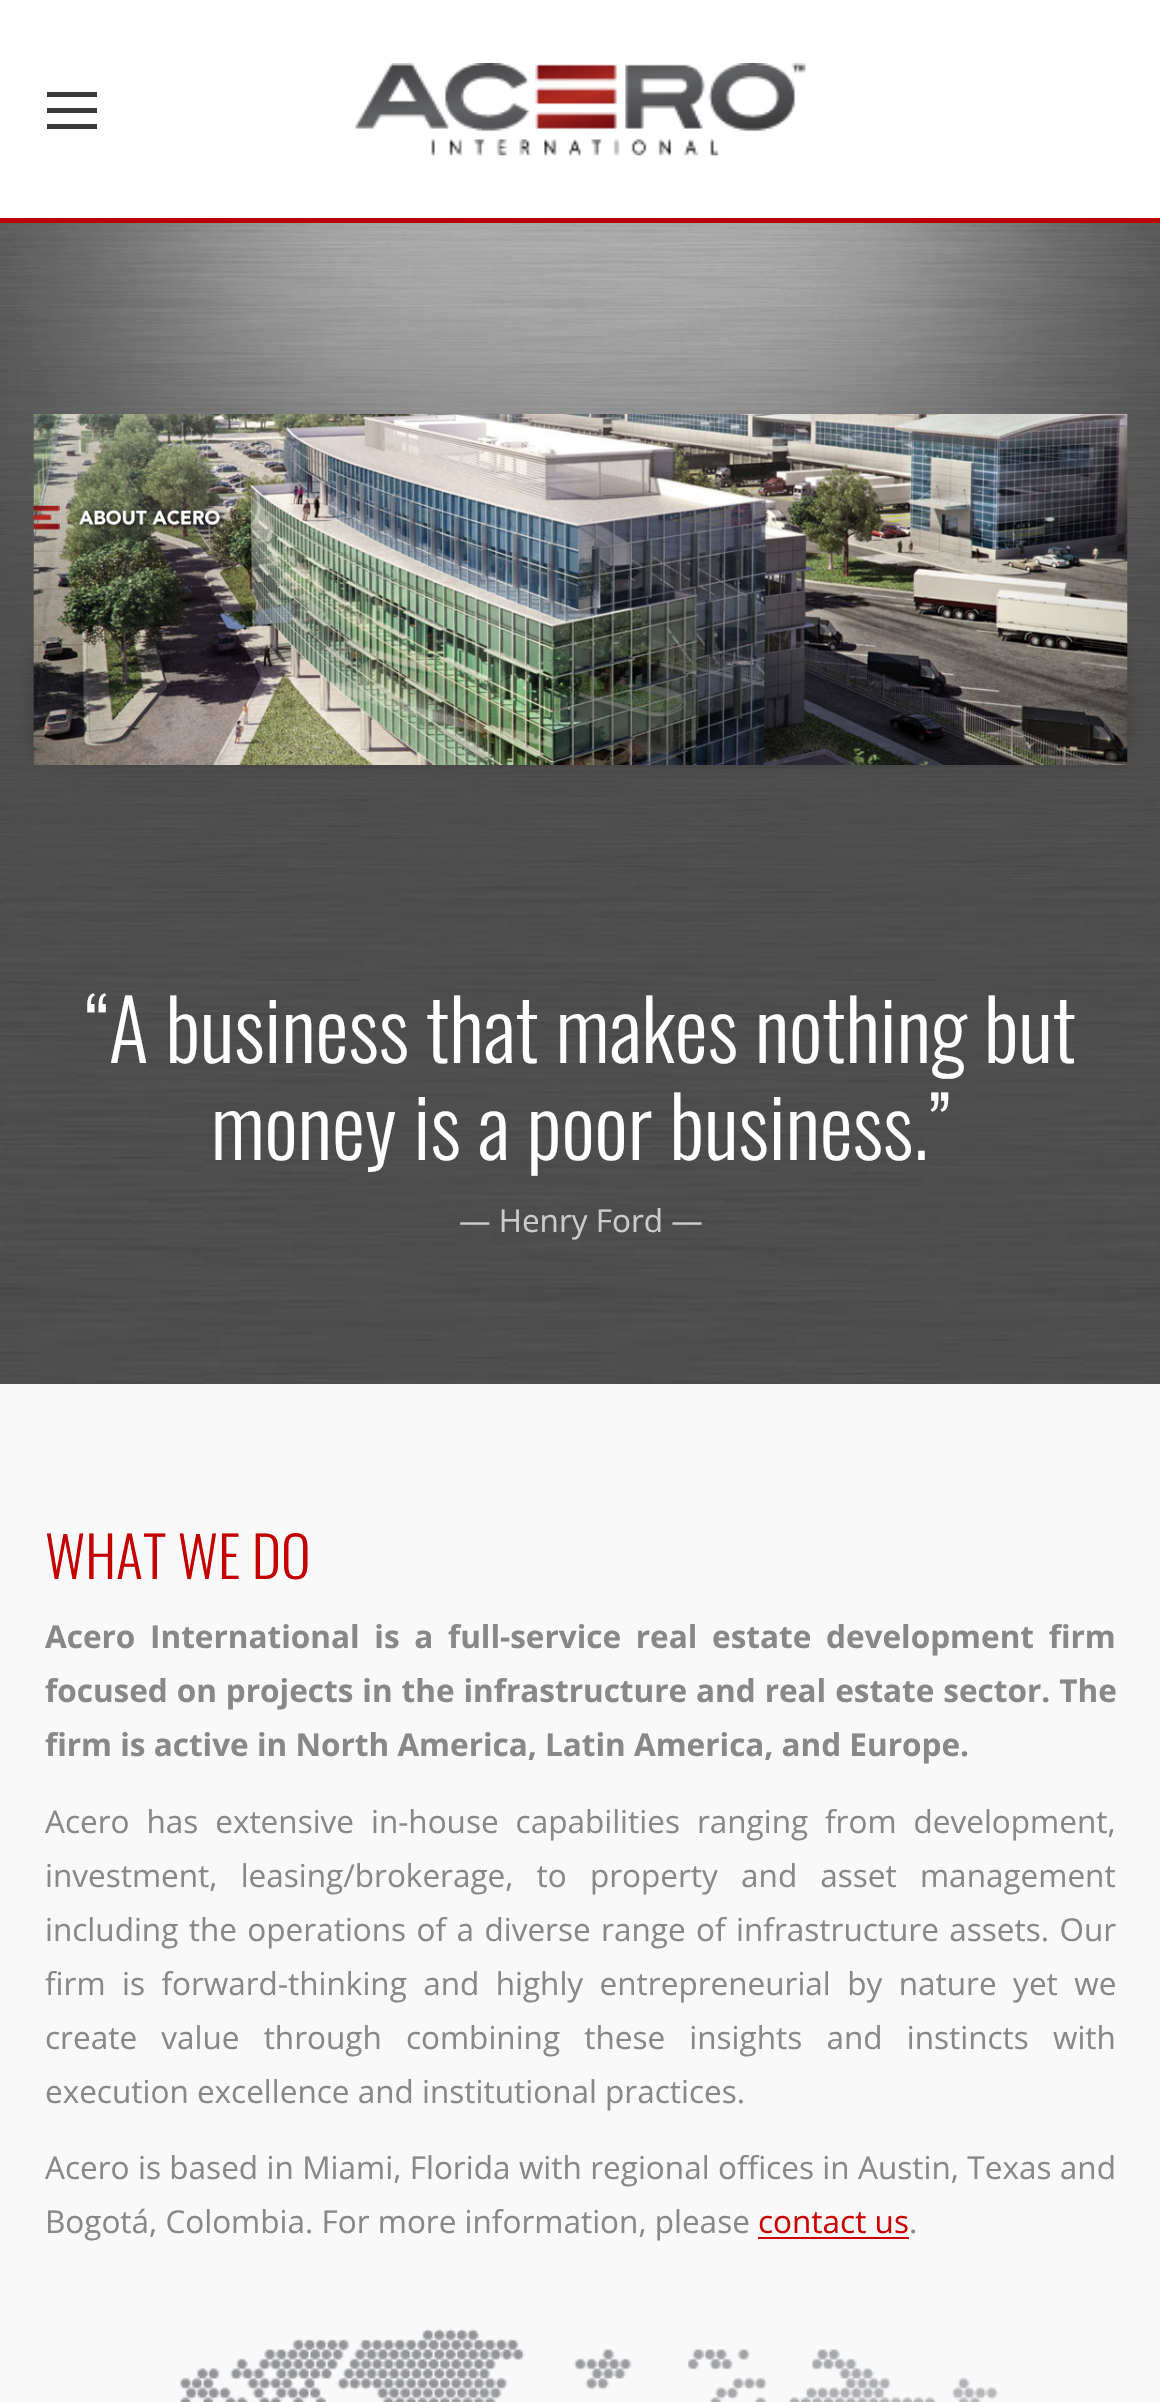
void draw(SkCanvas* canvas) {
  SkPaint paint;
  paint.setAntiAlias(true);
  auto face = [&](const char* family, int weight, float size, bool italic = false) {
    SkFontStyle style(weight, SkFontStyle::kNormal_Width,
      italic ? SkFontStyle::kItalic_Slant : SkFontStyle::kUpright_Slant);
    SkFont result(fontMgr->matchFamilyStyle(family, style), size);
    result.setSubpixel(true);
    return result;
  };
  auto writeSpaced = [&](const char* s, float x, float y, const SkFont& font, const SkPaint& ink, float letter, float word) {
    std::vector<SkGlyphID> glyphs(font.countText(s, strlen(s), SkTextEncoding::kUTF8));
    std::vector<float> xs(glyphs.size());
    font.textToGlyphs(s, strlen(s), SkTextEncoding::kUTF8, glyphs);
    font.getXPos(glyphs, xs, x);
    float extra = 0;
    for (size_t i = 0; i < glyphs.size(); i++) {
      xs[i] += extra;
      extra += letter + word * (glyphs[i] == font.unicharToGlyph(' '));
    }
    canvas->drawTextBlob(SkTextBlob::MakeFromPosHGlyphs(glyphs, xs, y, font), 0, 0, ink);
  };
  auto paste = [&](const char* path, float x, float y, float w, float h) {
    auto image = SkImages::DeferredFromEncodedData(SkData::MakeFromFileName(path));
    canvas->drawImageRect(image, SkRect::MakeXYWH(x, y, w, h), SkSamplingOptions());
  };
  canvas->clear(0xffffffff);
  paste("img/1.png", 0, 877, 1160, 507);
  paste("img/3.png", 0, 223, 1160, 654);
  paint.setColor(0xffc40000);
  canvas->drawRect(SkRect::MakeXYWH(0, 218, 1160, 5), paint);
  paint.setColor(0x12000000);
  paint.setMaskFilter(SkMaskFilter::MakeBlur(kNormal_SkBlurStyle, 17));
  canvas->drawRect(SkRect::MakeXYWH(-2, -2, 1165, 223), paint);
  paint.setMaskFilter(nullptr);
  {
    const struct { float x, y, w, h; SkColor color; } items[] = {
      {0, 0, 1160, 218, 0xffffffff},
      {47, 92, 50, 5, 0xff3a3a3a},
      {47, 108, 50, 5, 0xff3a3a3a},
      {47, 124, 50, 5, 0xff3a3a3a},
    };
    for (auto [x, y, w, h, color] : items) {
      paint.setColor(color);
      canvas->drawRect(SkRect::MakeXYWH(x, y, w, h), paint);
    }
  }
  paste("img/2.png", 355, 63, 451, 93);
  paint.setColor(0x99000000);
  paint.setMaskFilter(SkMaskFilter::MakeBlur(kNormal_SkBlurStyle, 11));
  canvas->drawRect(SkRect::MakeXYWH(45, 646, 536, 106), paint);
  paint.setMaskFilter(nullptr);
  paint.setMaskFilter(SkMaskFilter::MakeBlur(kNormal_SkBlurStyle, 11));
  canvas->drawRect(SkRect::MakeXYWH(581, 646, 535, 106), paint);
  paint.setMaskFilter(nullptr);
  paste("img/4.png", 33, 414, 1095, 351);
  paint.setColor(0xfff9f9f9);
  canvas->drawRect(SkRect::MakeXYWH(0, 1384, 1160, 1018), paint);
  paint.setColor(0xffcc0000);
  canvas->drawRect(SkRect::MakeXYWH(758, 2237, 151, 2), paint);
  paste("img/5.png", 180, 2328, 818, 74);
  auto f0 = face("Oswald", 300, 83.25f);
  paint.setColor(0xffffffff);
  canvas->drawString("“A business that makes nothing but", 85, 1063, f0, paint);
  canvas->drawString("money is a poor business.”", 211, 1160, f0, paint);
  auto f1 = face("Open Sans", 400, 31.5f);
  paint.setColor(0xffcccccc);
  canvas->drawString("— Henry Ford —", 459, 1232, f1, paint);
  auto f2 = face("Oswald", 300, 56.25f);
  paint.setColor(0xffc40000);
  canvas->drawString("WHAT WE DO", 45, 1579, f2, paint);
  auto f3 = face("Open Sans", 700, 31.5f);
  paint.setColor(0xff888888);
  writeSpaced("Acero International is a full-service real estate development firm", 45, 1648, f3, paint, 0, 6.5f);
  writeSpaced("focused on projects in the infrastructure and real estate sector. The", 45, 1702, f3, paint, 0, 0.75f);
  canvas->drawString("firm is active in North America, Latin America, and Europe.", 45, 1756, f3, paint);
  writeSpaced("Acero has extensive in-house capabilities ranging from development,", 45, 1833, f1, paint, 0, 8.75f);
  writeSpaced("investment, leasing/brokerage, to property and asset management", 45, 1887, f1, paint, 0, 15);
  writeSpaced("including the operations of a diverse range of infrastructure assets. Our", 45, 1941, f1, paint, 0, 2.25f);
  writeSpaced("firm is forward-thinking and highly entrepreneurial by nature yet we", 45, 1995, f1, paint, 0, 8.25f);
  writeSpaced("create value through combining these insights and instincts with", 45, 2049, f1, paint, 0, 16);
  canvas->drawString("execution excellence and institutional practices.", 45, 2103, f1, paint);
  writeSpaced("Acero is based in Miami, Florida with regional offices in Austin, Texas and", 45, 2179, f1, paint, 0, 0.25f);
  canvas->drawString("Bogotá, Colombia. For more information, please", 45, 2233, f1, paint);
  paint.setColor(0xffcc0000);
  canvas->drawString("contact us", 758, 2233, f1, paint);
  paint.setColor(0xff888888);
  canvas->drawString(".", 909, 2233, f1, paint);
}
